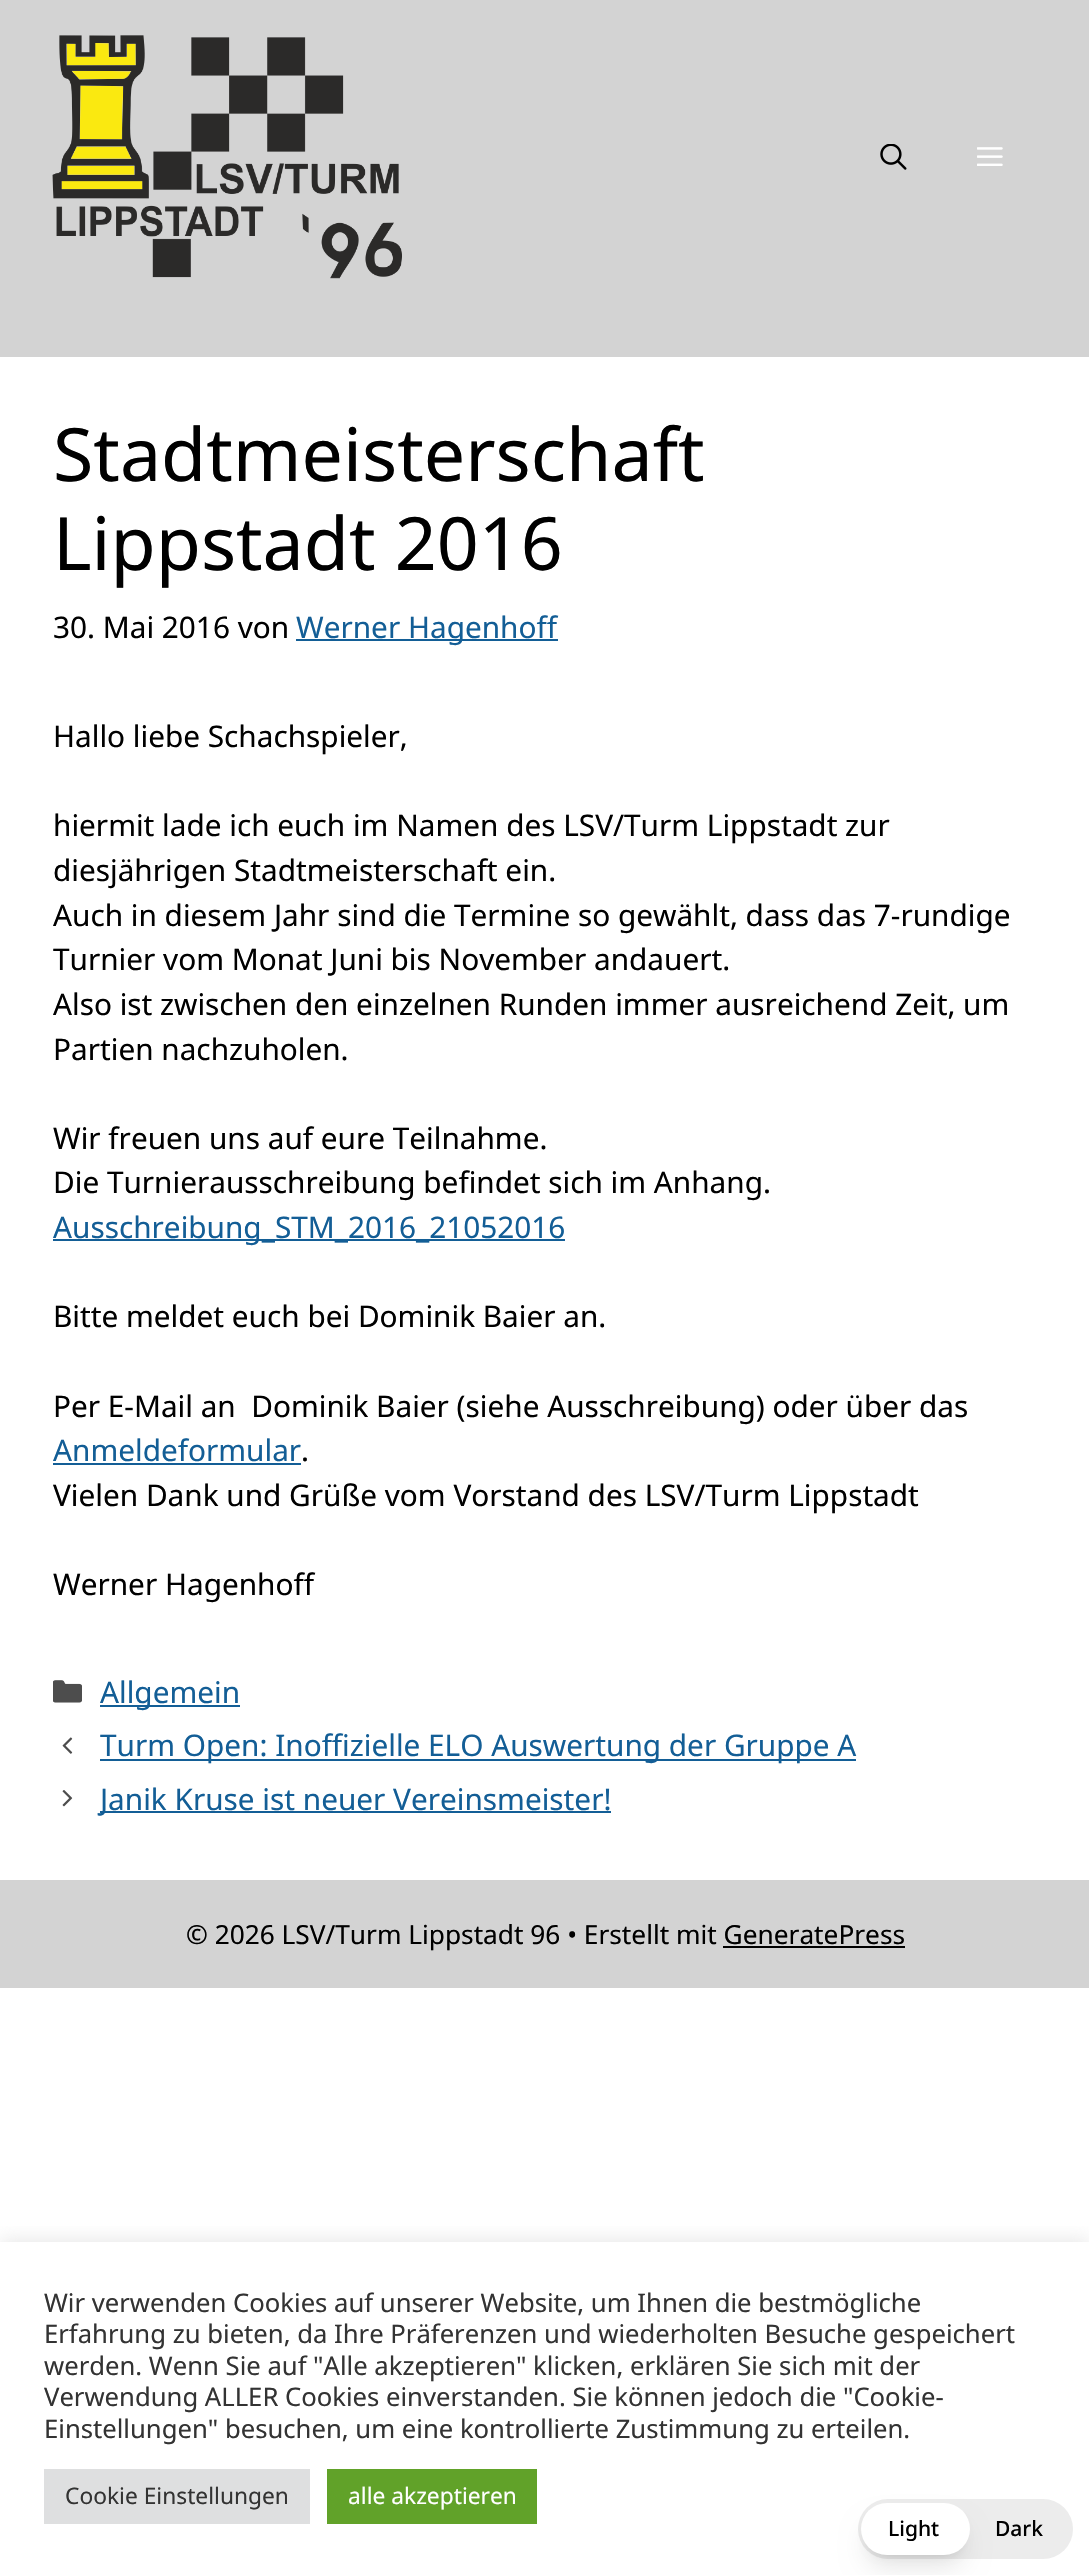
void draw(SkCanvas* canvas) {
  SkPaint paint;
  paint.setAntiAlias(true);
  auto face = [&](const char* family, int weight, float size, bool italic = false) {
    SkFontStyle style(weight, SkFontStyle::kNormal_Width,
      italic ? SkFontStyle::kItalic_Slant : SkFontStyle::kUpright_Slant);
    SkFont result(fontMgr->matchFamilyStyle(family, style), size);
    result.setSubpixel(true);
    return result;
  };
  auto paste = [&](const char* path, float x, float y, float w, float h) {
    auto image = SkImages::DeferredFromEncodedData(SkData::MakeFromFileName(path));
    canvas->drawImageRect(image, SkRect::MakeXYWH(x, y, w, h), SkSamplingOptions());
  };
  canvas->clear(0xffffffff);
  paint.setColor(0xffd3d3d3);
  canvas->drawRect(SkRect::MakeXYWH(0, 0, 1089, 357), paint);
  paste("img/1.png", 52, 35, 350, 244);
  paste("img/2.png", 880, 144, 27, 26);
  paste("img/3.png", 977, 147, 26, 19);
  {
    const struct { float x, y, w, h; SkColor color; } items[] = {
      {296, 639, 262, 2, 0xff135e96},
      {53, 1239, 512, 2, 0xff135e96},
      {53, 1463, 248, 2, 0xff135e96},
    };
    for (auto [x, y, w, h, color] : items) {
      paint.setColor(color);
      canvas->drawRect(SkRect::MakeXYWH(x, y, w, h), paint);
    }
  }
  paste("img/4.png", 53, 1680, 29, 23);
  canvas->drawRect(SkRect::MakeXYWH(100, 1705, 140, 2), paint);
  paste("img/5.png", 62, 1737, 11, 17);
  canvas->drawRect(SkRect::MakeXYWH(100, 1759, 756, 2), paint);
  paste("img/6.png", 62, 1790, 11, 17);
  {
    const struct { float x, y, w, h; SkColor color; } items[] = {
      {100, 1811, 511, 2, 0xff135e96},
      {0, 1880, 1089, 108, 0xffd3d3d3},
      {723, 1946, 182, 2, 0xff000000},
    };
    for (auto [x, y, w, h, color] : items) {
      paint.setColor(color);
      canvas->drawRect(SkRect::MakeXYWH(x, y, w, h), paint);
    }
  }
  canvas->save();
  canvas->clipRect(SkRect::MakeXYWH(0, 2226, 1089, 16));
  paint.setColor(0x4dacabab);
  paint.setMaskFilter(SkMaskFilter::MakeBlur(kNormal_SkBlurStyle, 9));
  canvas->drawRect(SkRect::MakeXYWH(0, 2240, 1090, 334), paint);
  paint.setMaskFilter(nullptr);
  canvas->restore();
  paint.setColor(0xffdedfe0);
  canvas->drawRect(SkRect::MakeXYWH(44, 2469, 266, 55), paint);
  paint.setColor(0xff61a229);
  canvas->drawRect(SkRect::MakeXYWH(327, 2469, 210, 55), paint);
  paint.setColor(0xffececec);
  canvas->drawRoundRect(SkRect::MakeXYWH(858, 2499, 215, 60), 30, 30, paint);
  paint.setColor(0x1a000000);
  paint.setMaskFilter(SkMaskFilter::MakeBlur(kNormal_SkBlurStyle, 5));
  canvas->drawRoundRect(SkRect::MakeXYWH(868, 2517, 95, 38), 19, 19, paint);
  paint.setMaskFilter(nullptr);
  paint.setMaskFilter(SkMaskFilter::MakeBlur(kNormal_SkBlurStyle, 13));
  canvas->drawRoundRect(SkRect::MakeXYWH(866, 2525, 98, 42), 21, 21, paint);
  paint.setMaskFilter(nullptr);
  paint.setColor(0xffffffff);
  canvas->drawRoundRect(SkRect::MakeXYWH(861, 2503, 109, 52), 26, 26, paint);
  auto f0 = face("Noto Sans", 400, 73.5f);
  paint.setColor(0xff000000);
  canvas->drawString("Stadtmeisterschaft", 53, 481, f0, paint);
  canvas->drawString("Lippstadt 2016", 53, 570, f0, paint);
  auto f1 = face("Noto Sans", 400, 29.75f);
  canvas->drawString("30. Mai 2016 von", 53, 638, f1, paint);
  paint.setColor(0xff135e96);
  canvas->drawString("Werner Hagenhoff", 296, 638, f1, paint);
  paint.setColor(0xff000000);
  {
    const struct { const char* s; float x, y; } items[] = {
      {"Hallo liebe Schachspieler,", 53, 747},
      {"hiermit lade ich euch im Namen des LSV/Turm Lippstadt zur", 53, 836},
      {"diesjährigen Stadtmeisterschaft ein.", 53, 881},
      {"Auch in diesem Jahr sind die Termine so gewählt, dass das 7-rundige", 53, 926},
      {"Turnier vom Monat Juni bis November andauert.", 53, 970},
      {"Also ist zwischen den einzelnen Runden immer ausreichend Zeit, um", 53, 1015},
      {"Partien nachzuholen.", 53, 1060},
      {"Wir freuen uns auf eure Teilnahme.", 53, 1149},
      {"Die Turnierausschreibung befindet sich im Anhang.", 53, 1193},
    };
    for (auto [s, x, y] : items) {
      canvas->drawString(s, x, y, f1, paint);
    }
  }
  paint.setColor(0xff135e96);
  canvas->drawString("Ausschreibung_STM_2016_21052016", 53, 1238, f1, paint);
  paint.setColor(0xff000000);
  canvas->drawString("Bitte meldet euch bei Dominik Baier an.", 53, 1327, f1, paint);
  canvas->drawString("Per E-Mail an  Dominik Baier (siehe Ausschreibung) oder über das", 53, 1417, f1, paint);
  paint.setColor(0xff135e96);
  canvas->drawString("Anmeldeformular", 53, 1461, f1, paint);
  paint.setColor(0xff000000);
  {
    const struct { const char* s; float x, y; } items[] = {
      {".", 301, 1461},
      {"Vielen Dank und Grüße vom Vorstand des LSV/Turm Lippstadt", 53, 1506},
      {"Werner Hagenhoff", 53, 1595},
    };
    for (auto [s, x, y] : items) {
      canvas->drawString(s, x, y, f1, paint);
    }
  }
  paint.setColor(0xff135e96);
  {
    const struct { const char* s; float x, y; } items[] = {
      {"Allgemein", 100, 1703},
      {"Turm Open: Inoffizielle ELO Auswertung der Gruppe A", 100, 1756},
      {"Janik Kruse ist neuer Vereinsmeister!", 100, 1810},
    };
    for (auto [s, x, y] : items) {
      canvas->drawString(s, x, y, f1, paint);
    }
  }
  auto f2 = face("Noto Sans", 400, 26.25f);
  paint.setColor(0xff000000);
  canvas->drawString("© 2026 LSV/Turm Lippstadt 96 • Erstellt mit GeneratePress", 186, 1944, f2, paint);
  auto f3 = face("Noto Sans", 400, 25.65f);
  paint.setColor(0xff333333);
  {
    const struct { const char* s; float x, y; } items[] = {
      {"Wir verwenden Cookies auf unserer Website, um Ihnen die bestmögliche", 44, 2312},
      {"Erfahrung zu bieten, da Ihre Präferenzen und wiederholten Besuche gespeichert", 44, 2343},
      {"werden. Wenn Sie auf \"Alle akzeptieren\" klicken, erklären Sie sich mit der", 44, 2375},
      {"Verwendung ALLER Cookies einverstanden. Sie können jedoch die \"Cookie-", 44, 2406},
      {"Einstellungen\" besuchen, um eine kontrollierte Zustimmung zu erteilen.", 44, 2438},
    };
    for (auto [s, x, y] : items) {
      canvas->drawString(s, x, y, f3, paint);
    }
  }
  auto f4 = face("Noto Sans", 400, 22.75f);
  canvas->drawString("Cookie Einstellungen", 65, 2504, f4, paint);
  paint.setColor(0xffffffff);
  canvas->drawString("alle akzeptieren", 348, 2504, f4, paint);
  auto f5 = face("Noto Sans", 500, 21);
  paint.setColor(0xff000000);
  canvas->drawString("Light", 888, 2536, f5, paint);
  canvas->drawString("Dark", 995, 2536, f5, paint);
}
